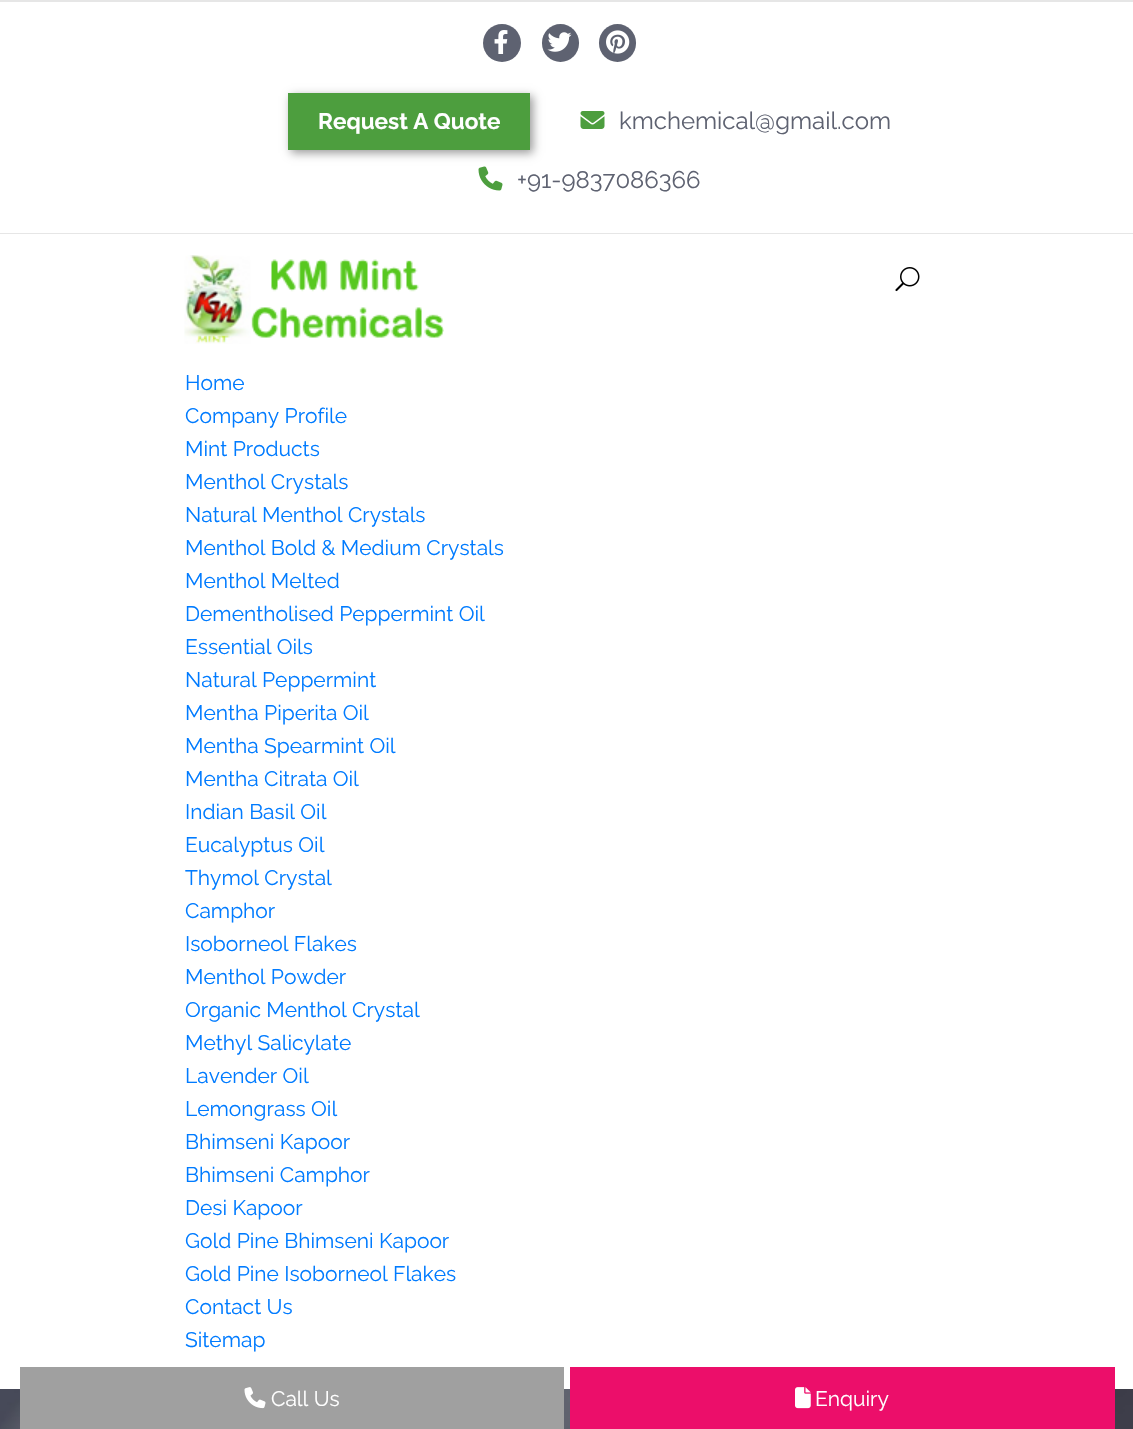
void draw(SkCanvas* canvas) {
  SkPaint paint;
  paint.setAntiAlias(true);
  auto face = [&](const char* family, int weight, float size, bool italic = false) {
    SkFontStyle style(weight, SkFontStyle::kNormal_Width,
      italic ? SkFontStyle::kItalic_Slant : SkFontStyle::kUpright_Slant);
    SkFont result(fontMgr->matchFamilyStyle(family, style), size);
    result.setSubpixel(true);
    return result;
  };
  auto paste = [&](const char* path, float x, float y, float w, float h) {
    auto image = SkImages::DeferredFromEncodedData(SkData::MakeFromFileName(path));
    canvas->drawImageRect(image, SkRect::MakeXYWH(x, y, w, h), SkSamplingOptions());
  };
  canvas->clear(0xffffffff);
  paint.setColor(0xffe6e6e6);
  canvas->drawRect(SkRect::MakeXYWH(0, 0, 1133, 2), paint);
  canvas->drawRect(SkRect::MakeXYWH(0, 233, 1133, 1), paint);
  paint.setColor(0xff5e6271);
  canvas->drawCircle(502, 43, 19, paint);
  paste("img/1.png", 494, 30, 14, 24);
  canvas->drawRoundRect(SkRect::MakeXYWH(542, 24, 37, 38), 18.5f, 18.5f, paint);
  paste("img/2.png", 547, 32, 25, 20);
  canvas->drawRoundRect(SkRect::MakeXYWH(599, 24, 37, 38), 18.5f, 18.5f, paint);
  paste("img/3.png", 606, 30, 24, 24);
  paint.setColor(0x66000000);
  paint.setMaskFilter(SkMaskFilter::MakeBlur(kNormal_SkBlurStyle, 4.5f));
  canvas->drawRect(SkRect::MakeXYWH(291, 96, 242, 57), paint);
  paint.setMaskFilter(nullptr);
  paint.setColor(0xff4d9e3e);
  canvas->drawRect(SkRect::MakeXYWH(288, 93, 242, 57), paint);
  paste("img/4.png", 580, 111, 25, 18);
  paste("img/5.png", 478, 166, 25, 25);
  paste("img/6.png", 184, 255, 260, 89);
  paste("img/7.png", 895, 267, 25, 25);
  paste("img/8.png", 0, 1389, 1133, 40);
  paint.setColor(0xffa0a0a0);
  canvas->drawRect(SkRect::MakeXYWH(20, 1367, 544, 62), paint);
  paste("img/9.png", 244, 1387, 22, 22);
  paint.setColor(0xffec0e6a);
  canvas->drawRect(SkRect::MakeXYWH(570, 1367, 545, 62), paint);
  paste("img/10.png", 795, 1387, 16, 22);
  auto f0 = face("Raleway", 700, 22.5f);
  paint.setColor(0xffffffff);
  canvas->drawString("Request A Quote", 318, 129, f0, paint);
  auto f1 = face("Raleway", 400, 24);
  paint.setColor(0xff5e6271);
  canvas->drawString("kmchemical@gmail.com", 619, 129, f1, paint);
  canvas->drawString("+91-9837086366", 517, 188, f1, paint);
  auto f2 = face("Raleway", 400, 21);
  paint.setColor(0xff007bff);
  {
    const struct { const char* s; float x, y; } items[] = {
      {"Home", 185, 390},
      {"Company Profile", 185, 423},
      {"Mint Products", 185, 456},
      {"Menthol Crystals", 185, 489},
      {"Natural Menthol Crystals", 185, 522},
      {"Menthol Bold & Medium Crystals", 185, 555},
      {"Menthol Melted", 185, 588},
      {"Dementholised Peppermint Oil", 185, 621},
      {"Essential Oils", 185, 654},
      {"Natural Peppermint", 185, 687},
      {"Mentha Piperita Oil", 185, 720},
      {"Mentha Spearmint Oil", 185, 753},
      {"Mentha Citrata Oil", 185, 786},
      {"Indian Basil Oil", 185, 819},
      {"Eucalyptus Oil", 185, 852},
      {"Thymol Crystal", 185, 885},
      {"Camphor", 185, 918},
      {"Isoborneol Flakes", 185, 951},
      {"Menthol Powder", 185, 984},
      {"Organic Menthol Crystal", 185, 1017},
      {"Methyl Salicylate", 185, 1050},
      {"Lavender Oil", 185, 1083},
      {"Lemongrass Oil", 185, 1116},
      {"Bhimseni Kapoor", 185, 1149},
      {"Bhimseni Camphor", 185, 1182},
      {"Desi Kapoor", 185, 1215},
      {"Gold Pine Bhimseni Kapoor", 185, 1248},
      {"Gold Pine Isoborneol Flakes", 185, 1281},
      {"Contact Us", 185, 1314},
      {"Sitemap", 185, 1347},
    };
    for (auto [s, x, y] : items) {
      canvas->drawString(s, x, y, f2, paint);
    }
  }
  paint.setColor(0xffffffff);
  canvas->drawString("Call Us", 271, 1406, f2, paint);
  canvas->drawString("Enquiry", 815, 1406, f2, paint);
}
